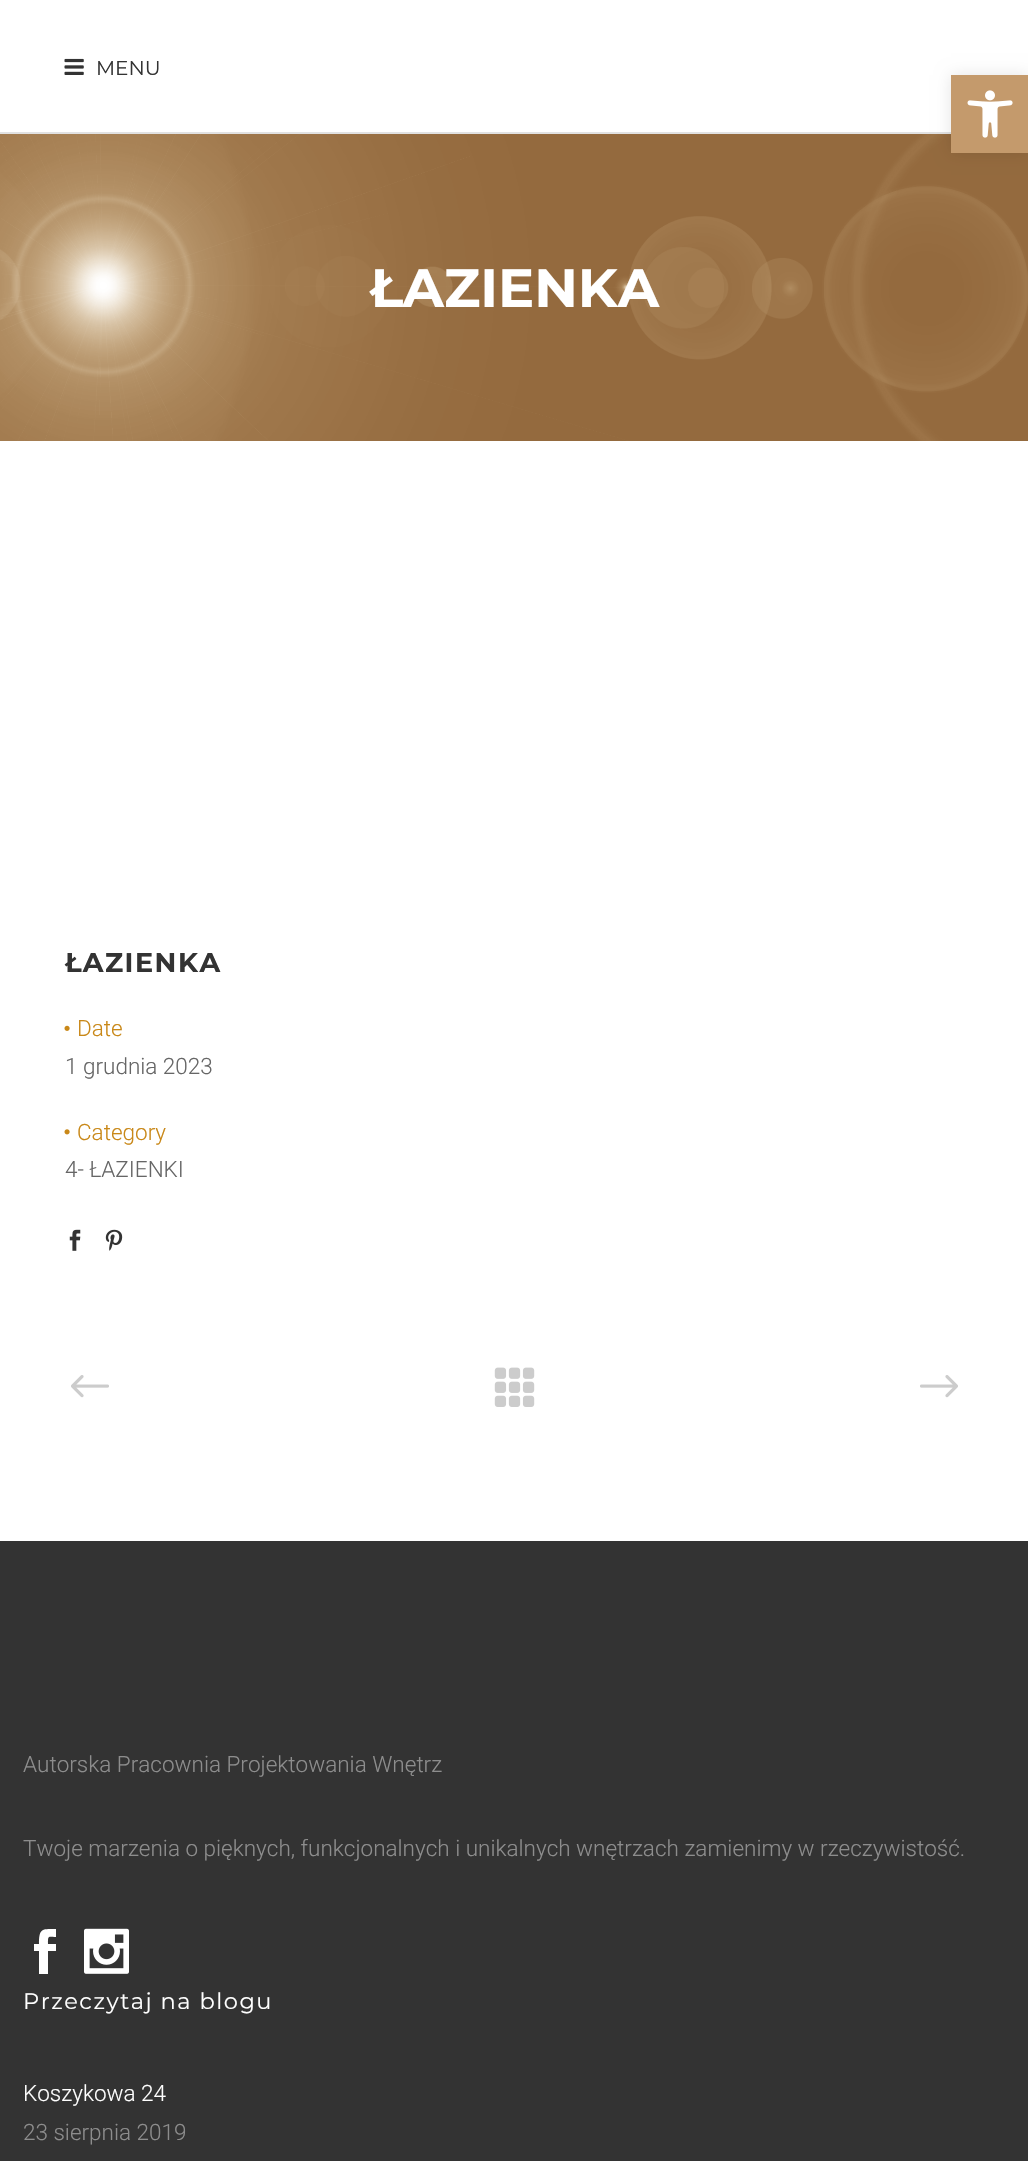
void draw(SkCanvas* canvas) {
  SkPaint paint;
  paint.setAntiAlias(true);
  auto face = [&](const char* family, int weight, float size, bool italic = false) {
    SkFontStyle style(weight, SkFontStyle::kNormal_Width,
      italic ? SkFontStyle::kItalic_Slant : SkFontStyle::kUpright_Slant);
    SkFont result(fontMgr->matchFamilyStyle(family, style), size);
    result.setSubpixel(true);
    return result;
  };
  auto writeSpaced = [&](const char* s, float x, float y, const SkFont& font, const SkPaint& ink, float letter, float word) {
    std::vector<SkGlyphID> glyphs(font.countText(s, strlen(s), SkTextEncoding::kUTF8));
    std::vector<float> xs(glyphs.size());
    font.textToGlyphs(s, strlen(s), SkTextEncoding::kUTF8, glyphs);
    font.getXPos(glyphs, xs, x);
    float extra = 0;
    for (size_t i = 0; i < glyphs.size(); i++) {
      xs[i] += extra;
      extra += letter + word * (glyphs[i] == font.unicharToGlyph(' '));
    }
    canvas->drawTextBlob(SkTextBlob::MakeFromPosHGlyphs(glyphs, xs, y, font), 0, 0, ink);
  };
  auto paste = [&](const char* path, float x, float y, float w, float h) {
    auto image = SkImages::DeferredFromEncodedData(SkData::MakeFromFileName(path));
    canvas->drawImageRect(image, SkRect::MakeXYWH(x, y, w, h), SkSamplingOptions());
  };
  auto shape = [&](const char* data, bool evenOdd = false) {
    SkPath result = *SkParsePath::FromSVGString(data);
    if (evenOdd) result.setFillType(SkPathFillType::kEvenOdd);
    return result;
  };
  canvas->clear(0xffffffff);
  paint.setColor(0xffe1e1e1);
  canvas->drawRect(SkRect::MakeXYWH(0, 132, 951, 2), paint);
  paste("img/1.png", 64, 58, 20, 17);
  paste("img/2.png", 0, 134, 1028, 307);
  paste("img/3.png", 64, 1025, 6, 6);
  paste("img/4.png", 64, 1129, 6, 6);
  paste("img/5.png", 69, 1229, 12, 22);
  paste("img/6.png", 105, 1229, 18, 22);
  paste("img/7.png", 71, 1375, 38, 23);
  paste("img/8.png", 494, 1367, 41, 40);
  paste("img/9.png", 920, 1375, 38, 23);
  paint.setColor(0xff333333);
  canvas->drawRect(SkRect::MakeXYWH(0, 1541, 1028, 620), paint);
  paint.setColor(0xffffffff);
  canvas->drawPath(shape("M39 1974V1951H34V1944H39C39 1928 42 1929 56 1929V1937C48 1937 48 1935 48 1944H56V1951H48V1974Z"), paint);
  paste("img/10.png", 84, 1928, 45, 46);
  paint.setColor(0x1a000000);
  paint.setMaskFilter(SkMaskFilter::MakeBlur(kNormal_SkBlurStyle, 7.5f));
  canvas->drawRect(SkRect::MakeXYWH(951, 75, 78, 78), paint);
  paint.setMaskFilter(nullptr);
  paint.setColor(0xffc49a6c);
  canvas->drawRect(SkRect::MakeXYWH(951, 75, 77, 78), paint);
  paste("img/11.png", 967, 90, 46, 48);
  auto f0 = face("Montserrat", 400, 20);
  paint.setColor(0xff333333);
  canvas->drawString("MENU", 96, 75, f0, paint);
  auto f1 = face("Montserrat", 700, 54);
  paint.setColor(0xffffffff);
  canvas->drawString("ŁAZIENKA", 370, 307, f1, paint);
  auto f2 = face("Montserrat", 700, 27);
  paint.setColor(0xff333333);
  writeSpaced("ŁAZIENKA", 65, 972, f2, paint, 1.5f, 0);
  auto f3 = face("Roboto", 300, 22.5f);
  paint.setColor(0xffc98818);
  canvas->drawString("Date", 77, 1036, f3, paint);
  paint.setColor(0xff666666);
  canvas->drawString("1 grudnia 2023", 65, 1074, f3, paint);
  paint.setColor(0xffc98818);
  canvas->drawString("Category", 77, 1140, f3, paint);
  paint.setColor(0xff666666);
  canvas->drawString("4- ŁAZIENKI", 65, 1177, f3, paint);
  paint.setColor(0xff8d8d8d);
  canvas->drawString("Autorska Pracownia Projektowania Wnętrz", 23, 1772, f3, paint);
  canvas->drawString("Twoje marzenia o pięknych, funkcjonalnych i unikalnych wnętrzach zamienimy w rzeczywistość.", 23, 1856, f3, paint);
  auto f4 = face("Montserrat", 400, 22.5f);
  paint.setColor(0xffffffff);
  writeSpaced("Przeczytaj na blogu", 23, 2009, f4, paint, 1.5f, 0);
  canvas->drawString("Koszykowa 24", 23, 2101, f3, paint);
  paint.setColor(0xff8d8d8d);
  canvas->drawString("23 sierpnia 2019", 23, 2140, f3, paint);
}
